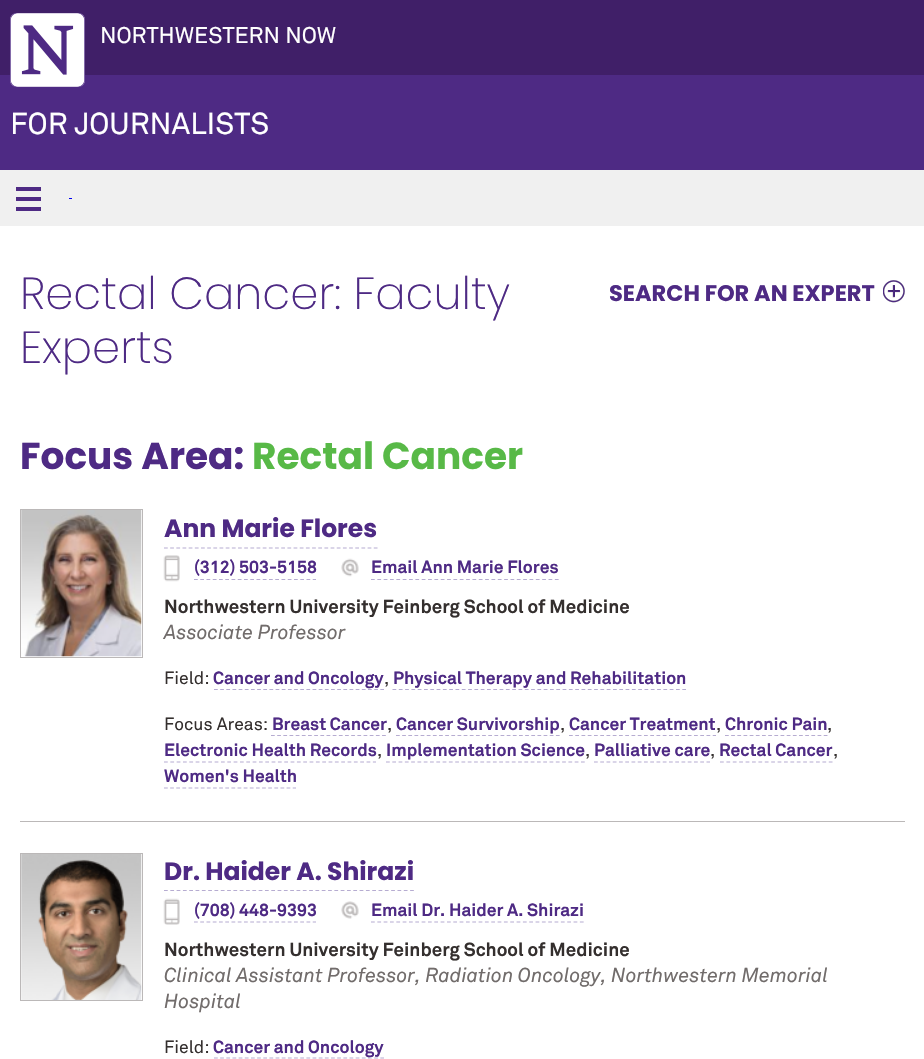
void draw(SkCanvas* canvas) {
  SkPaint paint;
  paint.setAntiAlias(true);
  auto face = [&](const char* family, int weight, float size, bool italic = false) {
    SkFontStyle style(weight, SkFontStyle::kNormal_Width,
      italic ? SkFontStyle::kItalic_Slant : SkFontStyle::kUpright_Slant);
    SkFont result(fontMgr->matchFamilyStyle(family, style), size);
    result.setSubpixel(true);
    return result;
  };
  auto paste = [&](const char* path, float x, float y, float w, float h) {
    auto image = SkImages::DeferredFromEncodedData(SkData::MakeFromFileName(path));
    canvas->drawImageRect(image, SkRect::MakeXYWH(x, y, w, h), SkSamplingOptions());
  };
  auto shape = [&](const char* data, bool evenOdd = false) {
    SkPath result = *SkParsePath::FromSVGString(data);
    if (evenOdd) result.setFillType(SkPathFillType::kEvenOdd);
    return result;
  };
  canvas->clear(0xffffffff);
  paint.setColor(0xff4e2a84);
  canvas->drawRect(SkRect::MakeXYWH(0, 75, 924, 95), paint);
  paint.setColor(0xff401f68);
  canvas->drawRect(SkRect::MakeXYWH(0, 0, 924, 75), paint);
  paste("img/1.png", 10, 13, 75, 74);
  {
    const struct { float x, y, w, h; SkColor color; } items[] = {
      {0, 170, 924, 56, 0xfff0f0f0},
      {16, 187, 25, 4, 0xff4e2a84},
      {16, 197, 25, 4, 0xff4e2a84},
      {16, 207, 25, 4, 0xff4e2a84},
      {69, 198, 3, 1, 0xff0000ee},
    };
    for (auto [x, y, w, h, color] : items) {
      paint.setColor(color);
      canvas->drawRect(SkRect::MakeXYWH(x, y, w, h), paint);
    }
  }
  paste("img/2.png", 883, 280, 22, 23);
  paint.setColor(0xffbbb8b8);
  canvas->drawRect(SkRect::MakeXYWH(20, 821, 885, 1), paint);
  paint.setStroke(true);
  paint.setStrokeWidth(1);
  canvas->drawRect(SkRect::MakeXYWH(20.5f, 509.5f, 122, 148), paint);
  paste("img/3.png", 21, 510, 121, 147);
  paint.setStrokeWidth(1.2f);
  paint.setColor(0xffb6acd1);
  paint.setPathEffect(SkDashPathEffect::Make({{3.75f, 2.42f}}, 0));
  canvas->drawPath(shape("M164 548H377.5"), paint);
  paint.setPathEffect(nullptr);
  paste("img/4.png", 163, 555, 17, 27);
  paint.setPathEffect(SkDashPathEffect::Make({{3.75f, 2.5f}}, 0));
  canvas->drawPath(shape("M194 579.5H316"), paint);
  paint.setPathEffect(nullptr);
  paste("img/5.png", 341, 558, 18, 19);
  paint.setPathEffect(SkDashPathEffect::Make({{3.75f, 2.59f}}, 0));
  canvas->drawPath(shape("M371 579.5H559"), paint);
  paint.setPathEffect(nullptr);
  paint.setPathEffect(SkDashPathEffect::Make({{3.75f, 2.41f}}, 0));
  canvas->drawPath(shape("M214 689.5H384"), paint);
  paint.setPathEffect(nullptr);
  paint.setPathEffect(SkDashPathEffect::Make({{3.75f, 2.55f}}, 0));
  canvas->drawPath(shape("M392.5 689.5H686"), paint);
  paint.setPathEffect(nullptr);
  paint.setPathEffect(SkDashPathEffect::Make({{3.75f, 2.42f}}, 0));
  canvas->drawPath(shape("M271 735.5H386"), paint);
  paint.setPathEffect(nullptr);
  paint.setPathEffect(SkDashPathEffect::Make({{3.75f, 2.4f}}, 0));
  canvas->drawPath(shape("M396 735.5H560"), paint);
  paint.setPathEffect(nullptr);
  paint.setPathEffect(SkDashPathEffect::Make({{3.75f, 2.5f}}, 0));
  canvas->drawPath(shape("M569 735.5H716"), paint);
  paint.setPathEffect(nullptr);
  paint.setPathEffect(SkDashPathEffect::Make({{3.75f, 2.42f}}, 0));
  canvas->drawPath(shape("M725 735.5H827.5"), paint);
  paint.setPathEffect(nullptr);
  paint.setPathEffect(SkDashPathEffect::Make({{3.75f, 2.58f}}, 0));
  canvas->drawPath(shape("M164 762H376"), paint);
  paint.setPathEffect(nullptr);
  paint.setPathEffect(SkDashPathEffect::Make({{3.75f, 2.54f}}, 0));
  canvas->drawPath(shape("M386 762H585"), paint);
  paint.setPathEffect(nullptr);
  paint.setPathEffect(SkDashPathEffect::Make({{3.75f, 2.5f}}, 0));
  canvas->drawPath(shape("M594 762H710"), paint);
  paint.setPathEffect(nullptr);
  paint.setPathEffect(SkDashPathEffect::Make({{3.75f, 2.65f}}, 0));
  canvas->drawPath(shape("M720 762H832.5"), paint);
  paint.setPathEffect(nullptr);
  paint.setPathEffect(SkDashPathEffect::Make({{3.75f, 2.38f}}, 0));
  canvas->drawPath(shape("M164 788H296"), paint);
  paint.setPathEffect(nullptr);
  paint.setStrokeWidth(1);
  paint.setColor(0xffbbb8b8);
  canvas->drawRect(SkRect::MakeXYWH(20.5f, 853.5f, 122, 147), paint);
  paste("img/6.png", 21, 854, 121, 146);
  paint.setStrokeWidth(1.2f);
  paint.setColor(0xffb6acd1);
  paint.setPathEffect(SkDashPathEffect::Make({{3.75f, 2.56f}}, 0));
  canvas->drawPath(shape("M164 890.5H414"), paint);
  paint.setPathEffect(nullptr);
  paste("img/7.png", 163, 898, 17, 27);
  paint.setPathEffect(SkDashPathEffect::Make({{3.75f, 2.5f}}, 0));
  canvas->drawPath(shape("M194 922H316"), paint);
  paint.setPathEffect(nullptr);
  paste("img/8.png", 341, 901, 18, 18);
  paint.setPathEffect(SkDashPathEffect::Make({{3.75f, 2.58f}}, 0));
  canvas->drawPath(shape("M371 922H584"), paint);
  paint.setPathEffect(nullptr);
  paint.setPathEffect(SkDashPathEffect::Make({{3.75f, 2.41f}}, 0));
  canvas->drawPath(shape("M214 1058H384"), paint);
  paint.setPathEffect(nullptr);
  auto f0 = face("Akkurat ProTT", 400, 22.5f);
  paint.setStroke(false);
  paint.setColor(0xffffffff);
  canvas->drawString("NORTHWESTERN NOW", 100, 43, f0, paint);
  auto f1 = face("Akkurat ProTT", 400, 30);
  canvas->drawString("FOR JOURNALISTS", 10, 134, f1, paint);
  auto f2 = face("Poppins", 200, 45);
  paint.setColor(0xff4e2a84);
  canvas->drawString("Rectal Cancer: Faculty", 20, 309, f2, paint);
  canvas->drawString("Experts", 20, 363, f2, paint);
  auto f3 = face("Poppins", 700, 22.5f);
  canvas->drawString("SEARCH FOR AN EXPERT", 609, 301, f3, paint);
  auto f4 = face("Poppins", 700, 37.5f);
  canvas->drawString("Focus Area:", 20, 469, f4, paint);
  paint.setColor(0xff58b947);
  canvas->drawString("Rectal Cancer", 252, 469, f4, paint);
  auto f5 = face("Poppins", 700, 25);
  paint.setColor(0xff4e2a84);
  canvas->drawString("Ann Marie Flores", 164, 537, f5, paint);
  auto f6 = face("Akkurat ProTT", 700, 17.5f);
  canvas->drawString("(312) 503-5158", 194, 573, f6, paint);
  canvas->drawString("Email Ann Marie Flores", 371, 573, f6, paint);
  auto f7 = face("Akkurat ProTT", 700, 18.75f);
  paint.setColor(0xff342f2e);
  canvas->drawString("Northwestern University Feinberg School of Medicine", 164, 613, f7, paint);
  auto f8 = face("Akkurat ProTT", 400, 20, true);
  paint.setColor(0xff716c6b);
  canvas->drawString("Associate Professor", 164, 639, f8, paint);
  auto f9 = face("Akkurat ProTT", 400, 17.5f);
  paint.setColor(0xff342f2e);
  canvas->drawString("Field:", 164, 684, f9, paint);
  paint.setColor(0xff4e2a84);
  canvas->drawString("Cancer and Oncology", 213, 684, f6, paint);
  paint.setColor(0xff342f2e);
  canvas->drawString(",", 384, 684, f9, paint);
  paint.setColor(0xff4e2a84);
  canvas->drawString("Physical Therapy and Rehabilitation", 393, 684, f6, paint);
  paint.setColor(0xff342f2e);
  canvas->drawString("Focus Areas:", 164, 730, f9, paint);
  paint.setColor(0xff4e2a84);
  canvas->drawString("Breast Cancer", 272, 730, f6, paint);
  paint.setColor(0xff342f2e);
  canvas->drawString(",", 387, 730, f9, paint);
  paint.setColor(0xff4e2a84);
  canvas->drawString("Cancer Survivorship", 396, 730, f6, paint);
  paint.setColor(0xff342f2e);
  canvas->drawString(",", 560, 730, f9, paint);
  paint.setColor(0xff4e2a84);
  canvas->drawString("Cancer Treatment", 569, 730, f6, paint);
  paint.setColor(0xff342f2e);
  canvas->drawString(",", 716, 730, f9, paint);
  paint.setColor(0xff4e2a84);
  canvas->drawString("Chronic Pain", 725, 730, f6, paint);
  paint.setColor(0xff342f2e);
  canvas->drawString(",", 827, 730, f9, paint);
  paint.setColor(0xff4e2a84);
  canvas->drawString("Electronic Health Records", 164, 756, f6, paint);
  paint.setColor(0xff342f2e);
  canvas->drawString(",", 377, 756, f9, paint);
  paint.setColor(0xff4e2a84);
  canvas->drawString("Implementation Science", 386, 756, f6, paint);
  paint.setColor(0xff342f2e);
  canvas->drawString(",", 585, 756, f9, paint);
  paint.setColor(0xff4e2a84);
  canvas->drawString("Palliative care", 594, 756, f6, paint);
  paint.setColor(0xff342f2e);
  canvas->drawString(",", 710, 756, f9, paint);
  paint.setColor(0xff4e2a84);
  canvas->drawString("Rectal Cancer", 719, 756, f6, paint);
  paint.setColor(0xff342f2e);
  canvas->drawString(",", 833, 756, f9, paint);
  paint.setColor(0xff4e2a84);
  canvas->drawString("Women's Health", 164, 782, f6, paint);
  canvas->drawString("Dr. Haider A. Shirazi", 164, 880, f5, paint);
  canvas->drawString("(708) 448-9393", 194, 916, f6, paint);
  canvas->drawString("Email Dr. Haider A. Shirazi", 371, 916, f6, paint);
  paint.setColor(0xff342f2e);
  canvas->drawString("Northwestern University Feinberg School of Medicine", 164, 956, f7, paint);
  paint.setColor(0xff716c6b);
  canvas->drawString("Clinical Assistant Professor, Radiation Oncology, Northwestern Memorial", 164, 982, f8, paint);
  canvas->drawString("Hospital", 164, 1008, f8, paint);
  paint.setColor(0xff342f2e);
  canvas->drawString("Field:", 164, 1053, f9, paint);
  paint.setColor(0xff4e2a84);
  canvas->drawString("Cancer and Oncology", 213, 1053, f6, paint);
}
